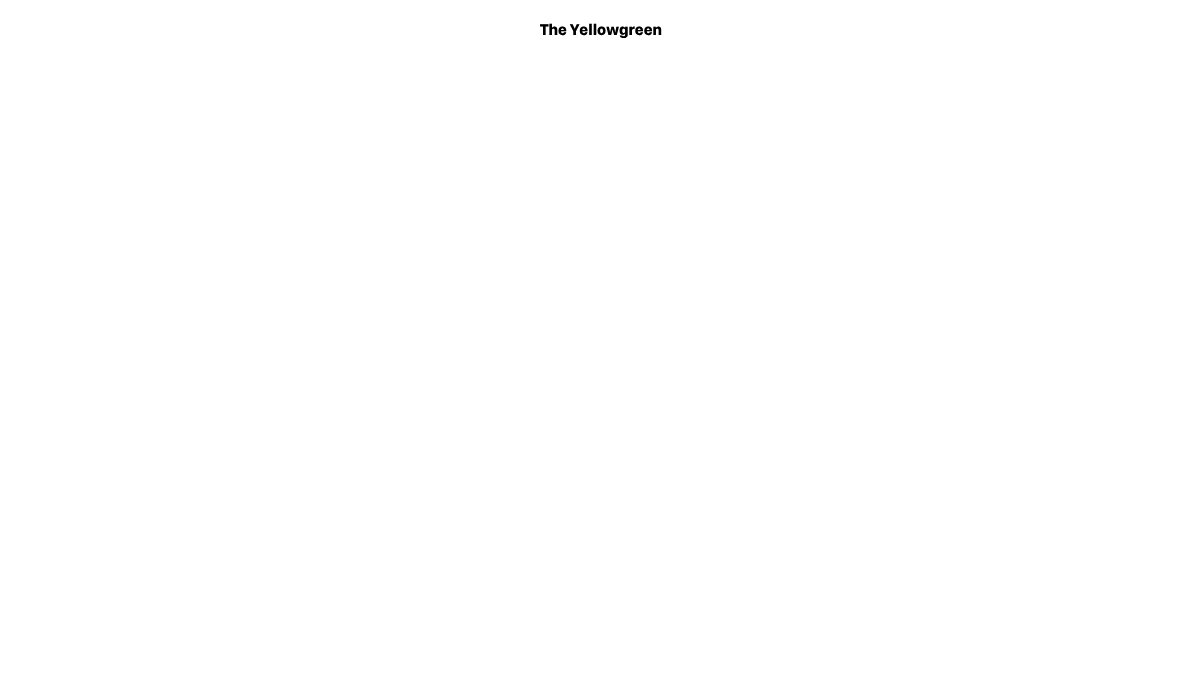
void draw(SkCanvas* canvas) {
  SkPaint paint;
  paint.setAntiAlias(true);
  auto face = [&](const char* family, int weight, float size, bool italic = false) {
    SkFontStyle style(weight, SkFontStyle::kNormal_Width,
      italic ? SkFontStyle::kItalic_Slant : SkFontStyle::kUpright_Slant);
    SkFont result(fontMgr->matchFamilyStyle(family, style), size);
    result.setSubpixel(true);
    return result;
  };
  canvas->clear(0xffffffff);
  auto f0 = face("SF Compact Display", 200, 16);
  paint.setColor(0xff000000);
  canvas->drawString("The Yellowgreen", 540, 35, f0, paint);
}
